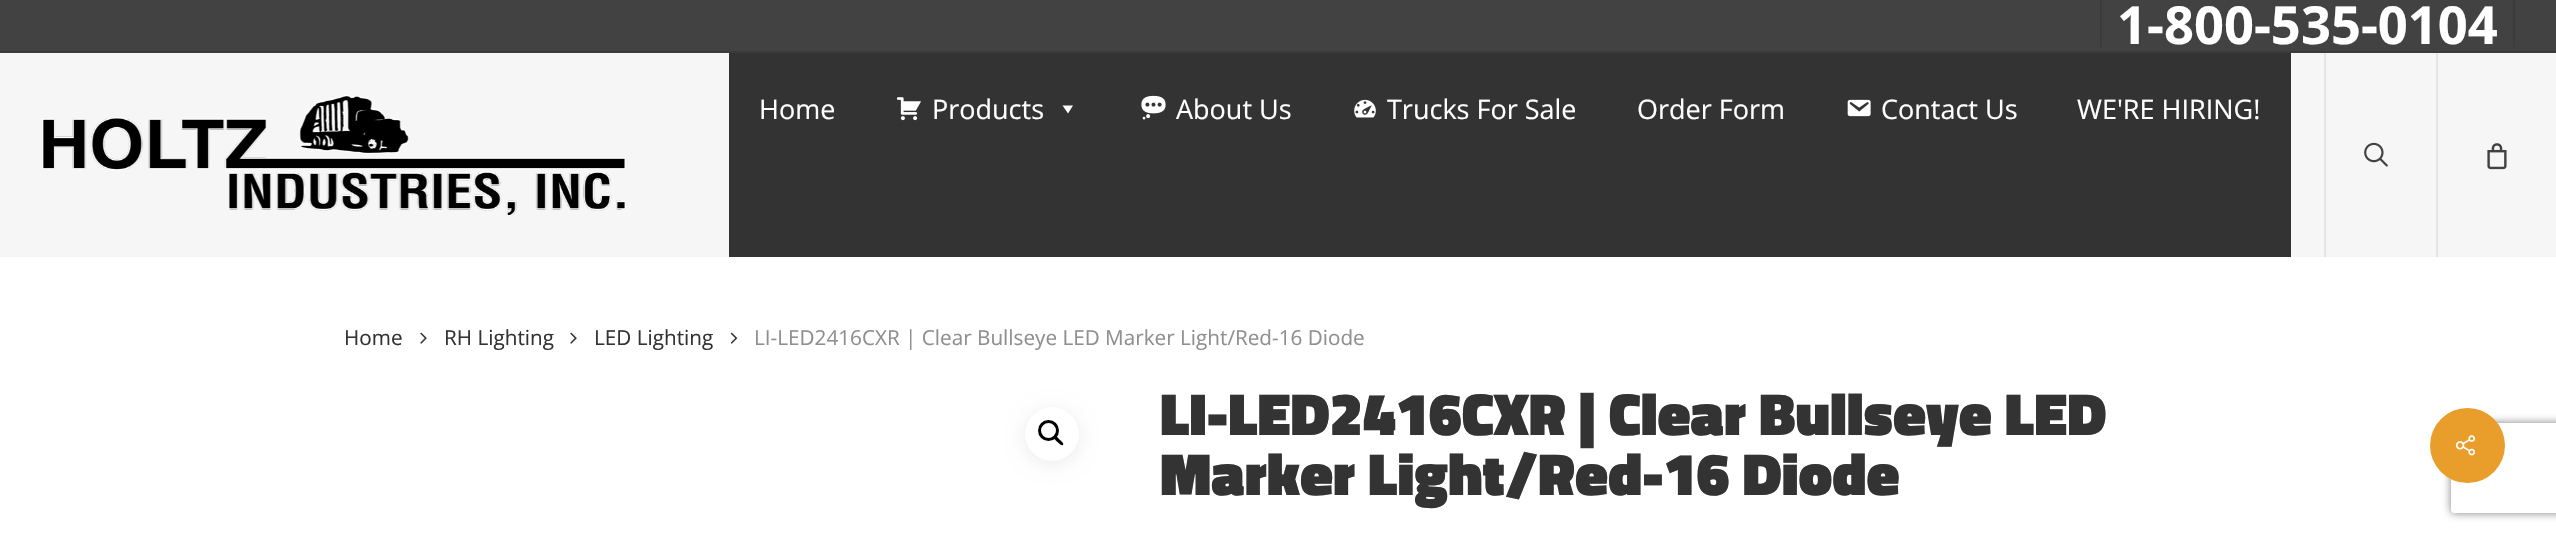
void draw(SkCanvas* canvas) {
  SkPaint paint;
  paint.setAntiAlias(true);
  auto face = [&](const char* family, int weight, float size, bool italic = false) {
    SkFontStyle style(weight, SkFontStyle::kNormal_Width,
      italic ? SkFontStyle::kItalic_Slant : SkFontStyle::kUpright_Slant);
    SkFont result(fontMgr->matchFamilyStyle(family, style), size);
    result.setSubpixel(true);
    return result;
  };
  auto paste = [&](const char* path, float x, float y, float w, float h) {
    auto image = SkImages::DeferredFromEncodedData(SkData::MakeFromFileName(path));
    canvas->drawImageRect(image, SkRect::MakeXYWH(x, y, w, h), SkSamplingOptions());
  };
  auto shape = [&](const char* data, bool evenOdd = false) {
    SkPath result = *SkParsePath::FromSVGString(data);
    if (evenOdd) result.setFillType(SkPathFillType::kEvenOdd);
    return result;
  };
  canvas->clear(0xffffffff);
  {
    const struct { float x, y, w, h; SkColor color; } items[] = {
      {0, 53, 2556, 204, 0xfff6f6f6},
      {0, 0, 2556, 51, 0xff424242},
      {0, 51, 2556, 2, 0xff3b3b3b},
      {2513, 0, 2, 47, 0xff3b3b3b},
      {2100, 0, 2, 47, 0xff3b3b3b},
    };
    for (auto [x, y, w, h, color] : items) {
      paint.setColor(color);
      canvas->drawRect(SkRect::MakeXYWH(x, y, w, h), paint);
    }
  }
  paste("img/1.png", 42, 95, 584, 120);
  paint.setColor(0xff333333);
  canvas->drawRect(SkRect::MakeXYWH(729, 53, 1562, 204), paint);
  paste("img/2.png", 896, 97, 25, 24);
  paint.setColor(0xffffffff);
  canvas->drawPath(shape("M1073 105.5L1068 113.5L1062.5 105.5Z"), paint);
  paste("img/3.png", 1141, 95, 25, 25);
  paste("img/4.png", 1354, 99, 22, 19);
  paste("img/5.png", 1847, 99, 24, 18);
  paint.setColor(0xffe5e5e5);
  canvas->drawRect(SkRect::MakeXYWH(2324, 53, 2, 204), paint);
  paste("img/6.png", 2364, 142, 24, 25);
  canvas->drawRect(SkRect::MakeXYWH(2436, 53, 2, 204), paint);
  paste("img/7.png", 2487, 143, 20, 27);
  paste("img/8.png", 420, 332, 7, 12);
  paste("img/8.png", 570, 332, 7, 12);
  paste("img/9.png", 730, 332, 8, 12);
  paint.setColor(0x14000000);
  paint.setMaskFilter(SkMaskFilter::MakeBlur(kNormal_SkBlurStyle, 9));
  canvas->drawRoundRect(SkRect::MakeXYWH(1025, 410, 54, 54), 27, 27, paint);
  paint.setMaskFilter(nullptr);
  paint.setColor(0xffffffff);
  canvas->drawCircle(1052, 434, 27, paint);
  paint.setStroke(true);
  paint.setStrokeWidth(3);
  paint.setColor(0xff000000);
  canvas->drawCircle(1048.5f, 430.5f, 9, paint);
  paint.setStroke(false);
  canvas->drawPath(shape("M1054.5 436.5C1056 434.5 1058.5 438.5 1059.5 439.5C1060.5 440.5 1064.5 443 1063 445C1061 446.5 1058.5 442.5 1057.5 442C1056.5 441 1052.5 438 1054.5 436.5Z"), paint);
  canvas->save();
  canvas->clipPath(shape("M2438 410H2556V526H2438ZM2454 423H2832C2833.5 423 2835 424.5 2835 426V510C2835 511.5 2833.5 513 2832 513H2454C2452.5 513 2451 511.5 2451 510V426C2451 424.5 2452.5 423 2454 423Z", true), true);
  paint.setColor(0xff808080);
  paint.setMaskFilter(SkMaskFilter::MakeBlur(kNormal_SkBlurStyle, 4));
  canvas->drawRoundRect(SkRect::MakeXYWH(2451, 423, 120, 90), 3, 3, paint);
  paint.setMaskFilter(nullptr);
  canvas->restore();
  paint.setColor(0xffe99d2a);
  canvas->drawCircle(2467.5f, 445.5f, 37.5f, paint);
  paste("img/10.png", 2455, 435, 20, 21);
  auto f0 = face("Open Sans", 700, 52.5f);
  paint.setColor(0xffffffff);
  canvas->drawString("1-800-535-0104", 2117, 44, f0, paint);
  auto f1 = face("Open Sans", 400, 27);
  {
    const struct { const char* s; float x, y; } items[] = {
      {"Home", 759, 119},
      {"Products", 932, 119},
      {"About Us", 1176, 119},
      {"Trucks For Sale", 1387, 119},
      {"Order Form", 1637, 119},
      {"Contact Us", 1881, 119},
      {"WE'RE HIRING!", 2077, 119},
    };
    for (auto [s, x, y] : items) {
      canvas->drawString(s, x, y, f1, paint);
    }
  }
  auto f2 = face("Open Sans", 400, 20.7f);
  paint.setColor(0xff333333);
  {
    const struct { const char* s; float x, y; } items[] = {
      {"Home", 344, 345},
      {"RH Lighting", 444, 345},
      {"LED Lighting", 594, 345},
    };
    for (auto [s, x, y] : items) {
      canvas->drawString(s, x, y, f2, paint);
    }
  }
  paint.setColor(0xff8f8f8f);
  canvas->drawString("LI-LED2416CXR | Clear Bullseye LED Marker Light/Red-16 Diode", 754, 345, f2, paint);
  auto f3 = face("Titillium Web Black", 900, 60);
  paint.setColor(0xff333333);
  canvas->drawString("LI-LED2416CXR | Clear Bullseye LED", 1160, 435, f3, paint);
  canvas->drawString("Marker Light/Red-16 Diode", 1160, 495, f3, paint);
}
